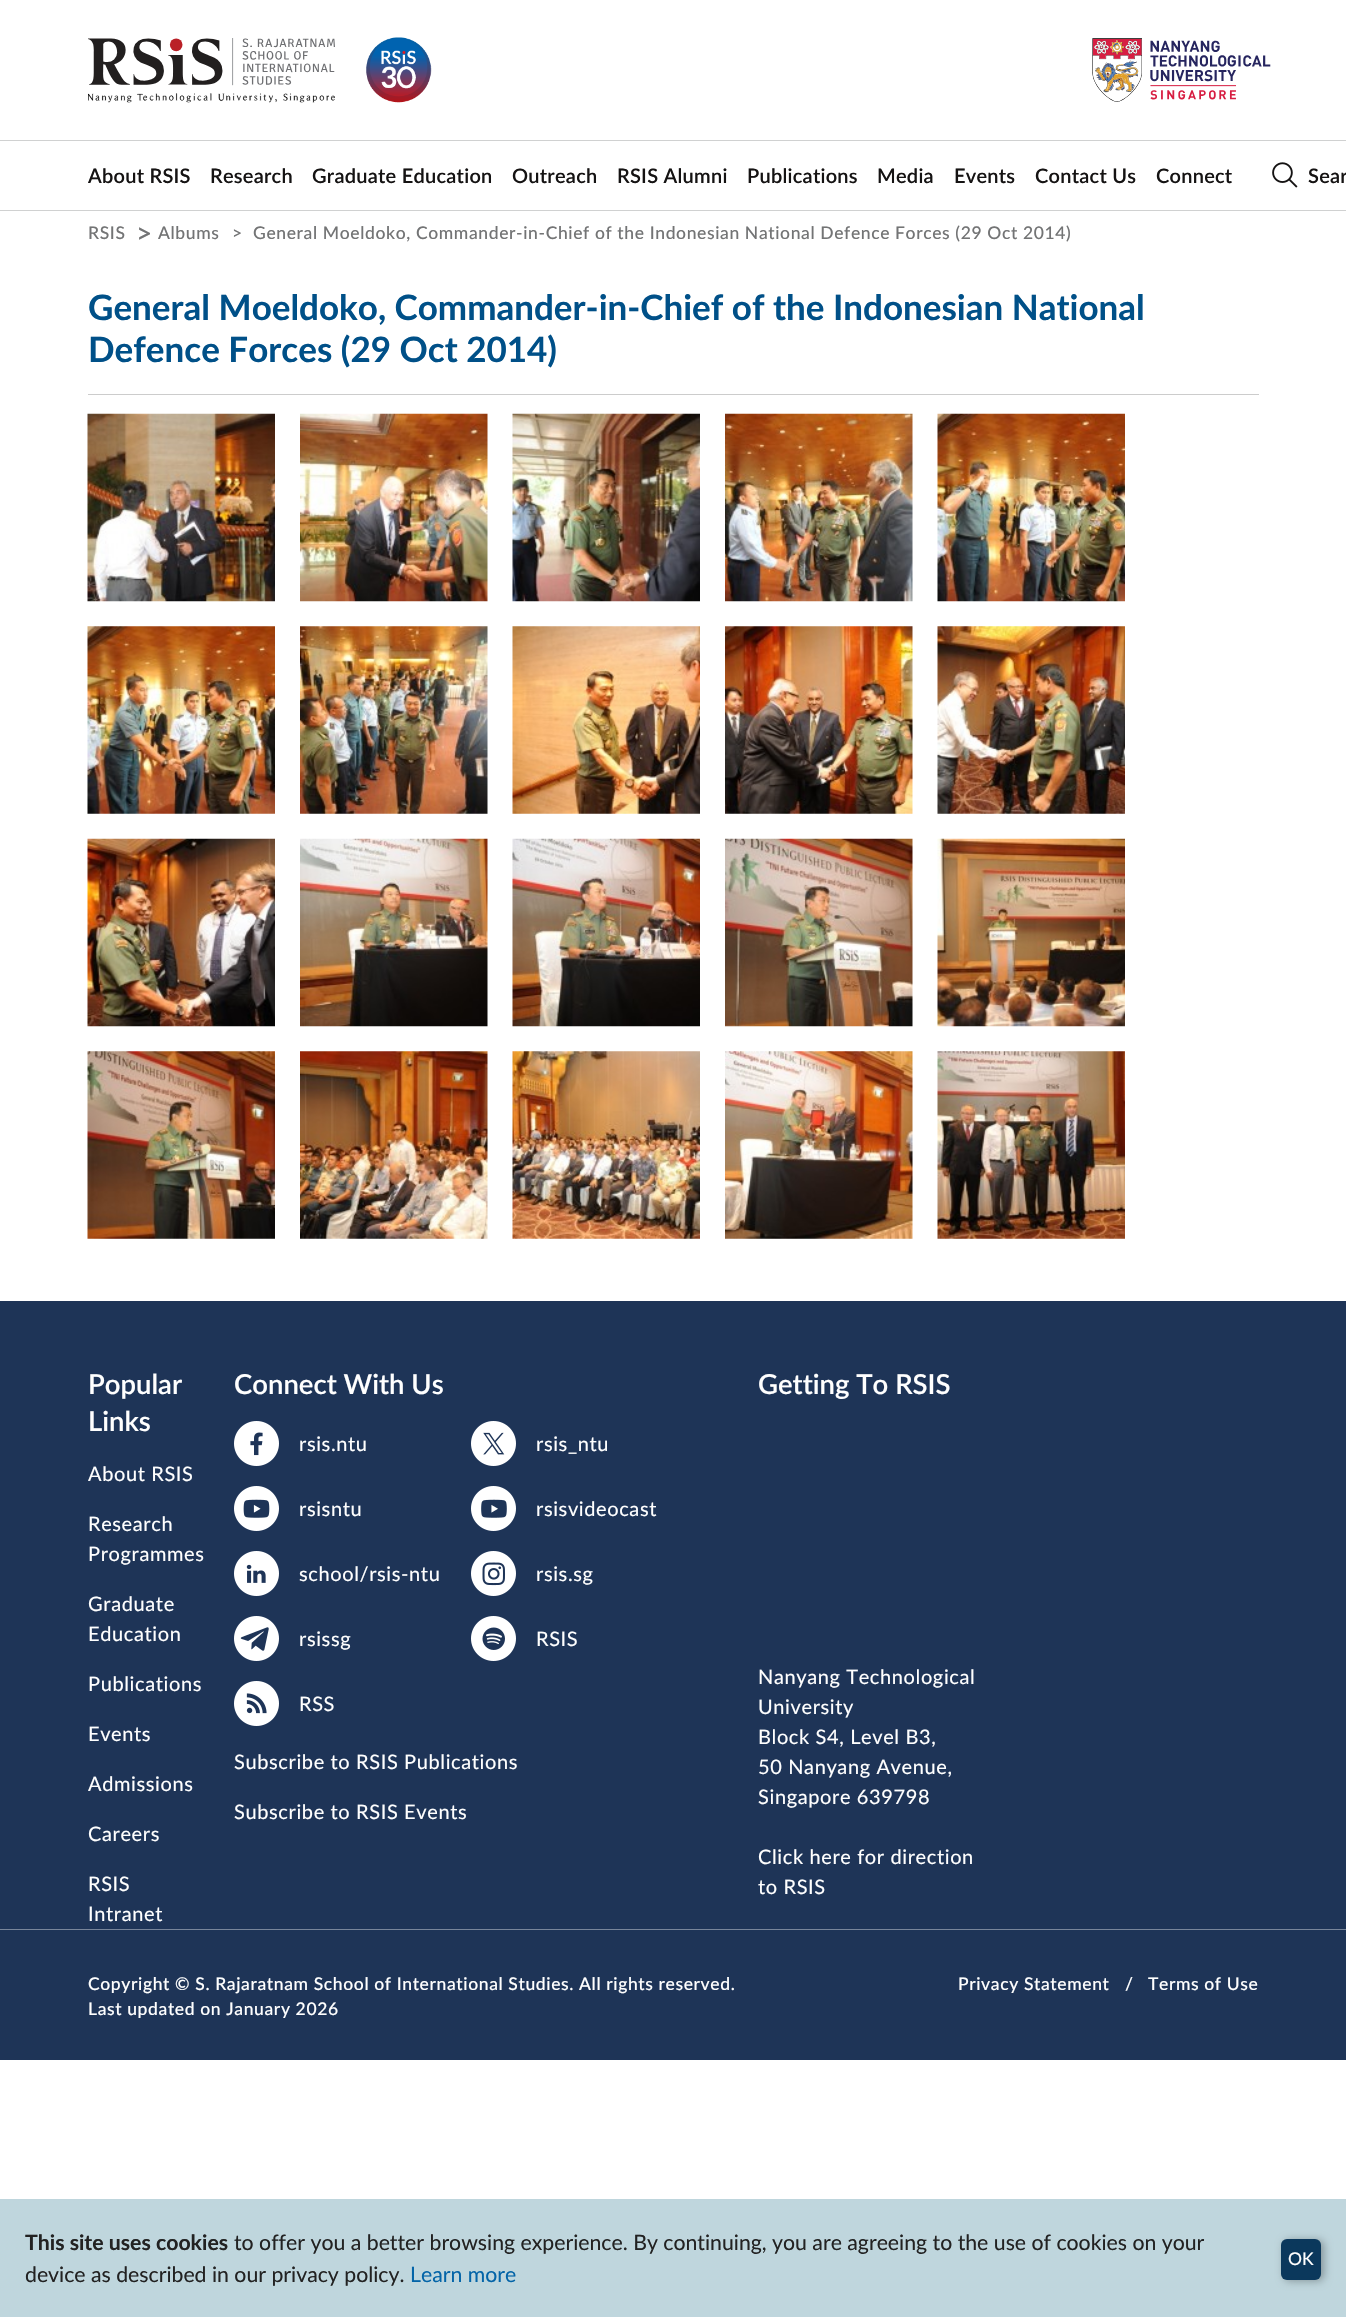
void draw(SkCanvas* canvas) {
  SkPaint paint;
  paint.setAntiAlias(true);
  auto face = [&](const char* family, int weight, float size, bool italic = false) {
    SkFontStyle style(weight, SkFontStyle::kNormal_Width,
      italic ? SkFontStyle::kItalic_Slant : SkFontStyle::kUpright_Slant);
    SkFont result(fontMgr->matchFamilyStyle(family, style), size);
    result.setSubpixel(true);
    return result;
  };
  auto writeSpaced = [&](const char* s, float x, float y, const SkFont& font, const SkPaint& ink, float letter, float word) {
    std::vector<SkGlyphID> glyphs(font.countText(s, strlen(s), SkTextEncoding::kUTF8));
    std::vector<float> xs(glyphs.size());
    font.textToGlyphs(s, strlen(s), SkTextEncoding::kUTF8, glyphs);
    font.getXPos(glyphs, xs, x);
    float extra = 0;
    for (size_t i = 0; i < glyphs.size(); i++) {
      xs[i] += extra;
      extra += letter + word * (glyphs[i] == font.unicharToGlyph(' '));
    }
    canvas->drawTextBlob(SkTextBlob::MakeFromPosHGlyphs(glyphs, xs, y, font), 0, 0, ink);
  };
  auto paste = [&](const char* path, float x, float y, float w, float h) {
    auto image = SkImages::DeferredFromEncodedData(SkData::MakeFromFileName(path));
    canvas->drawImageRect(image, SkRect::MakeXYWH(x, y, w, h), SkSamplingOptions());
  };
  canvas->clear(0xffffffff);
  paste("img/1.png", 88, 38, 247, 65);
  paste("img/2.png", 366, 37, 66, 66);
  paste("img/3.png", 1092, 38, 179, 64);
  paint.setColor(0xffd0d1d1);
  canvas->drawRect(SkRect::MakeXYWH(0, 140, 1346, 1), paint);
  canvas->drawRect(SkRect::MakeXYWH(0, 210, 1346, 1), paint);
  paste("img/4.png", 1272, 162, 26, 26);
  paint.setColor(0xffcccccc);
  canvas->drawRect(SkRect::MakeXYWH(88, 394, 1171, 1), paint);
  paste("img/5.png", 87, 413, 188, 189);
  paste("img/6.png", 300, 413, 188, 189);
  paste("img/7.png", 512, 413, 188, 189);
  paste("img/8.png", 725, 413, 188, 189);
  paste("img/9.png", 937, 413, 188, 189);
  paste("img/10.png", 87, 626, 188, 188);
  paste("img/11.png", 300, 626, 188, 188);
  paste("img/12.png", 512, 626, 188, 188);
  paste("img/13.png", 725, 626, 188, 188);
  paste("img/14.png", 937, 626, 188, 188);
  paste("img/15.png", 87, 838, 188, 189);
  paste("img/16.png", 300, 838, 188, 189);
  paste("img/17.png", 512, 838, 188, 189);
  paste("img/18.png", 725, 838, 188, 189);
  paste("img/19.png", 937, 838, 188, 189);
  paste("img/20.png", 87, 1051, 188, 188);
  paste("img/21.png", 300, 1051, 188, 188);
  paste("img/22.png", 512, 1051, 188, 188);
  paste("img/23.png", 725, 1051, 188, 188);
  paste("img/24.png", 937, 1051, 188, 188);
  paint.setColor(0xff1e3457);
  canvas->drawRect(SkRect::MakeXYWH(0, 1301, 1346, 759), paint);
  paste("img/25.png", 234, 1421, 45, 45);
  paste("img/26.png", 471, 1421, 45, 45);
  paste("img/27.png", 234, 1486, 45, 45);
  paste("img/28.png", 471, 1486, 45, 45);
  paste("img/29.png", 234, 1551, 45, 45);
  paste("img/30.png", 471, 1551, 45, 45);
  paste("img/31.png", 234, 1616, 45, 45);
  paste("img/32.png", 471, 1616, 45, 45);
  paste("img/33.png", 234, 1681, 45, 45);
  paint.setColor(0xff78859a);
  canvas->drawRect(SkRect::MakeXYWH(0, 1929, 1346, 1), paint);
  paint.setColor(0xffbfd6dd);
  canvas->drawRect(SkRect::MakeXYWH(0, 2199, 1346, 118), paint);
  paint.setColor(0x4f000000);
  paint.setMaskFilter(SkMaskFilter::MakeBlur(kNormal_SkBlurStyle, 4.5f));
  canvas->drawRoundRect(SkRect::MakeXYWH(1284, 2240, 40, 41), 6, 6, paint);
  paint.setMaskFilter(nullptr);
  paint.setColor(0xff0b385c);
  canvas->drawRoundRect(SkRect::MakeXYWH(1281, 2239, 40, 41), 6, 6, paint);
  auto f0 = face("Lato", 600, 20);
  paint.setColor(0xff151313);
  {
    const struct { const char* s; float x, y; } items[] = {
      {"About RSIS", 88, 183},
      {"Research", 210, 183},
      {"Graduate Education", 312, 183},
      {"Outreach", 512, 183},
      {"RSIS Alumni", 617, 183},
      {"Publications", 747, 183},
      {"Media", 877, 183},
      {"Events", 954, 183},
      {"Contact Us", 1035, 183},
      {"Connect", 1156, 183},
      {"Sear", 1308, 183},
    };
    for (auto [s, x, y] : items) {
      writeSpaced(s, x, y, f0, paint, 0.25f, 0);
    }
  }
  auto f1 = face("Lato", 500, 17.5f);
  paint.setColor(0xff737475);
  writeSpaced("RSIS", 88, 239, f1, paint, 0.62f, 0);
  auto f2 = face("Lato", 500, 28);
  writeSpaced(">", 136, 243, f2, paint, -3, 0);
  {
    const struct { const char* s; float x, y; } items[] = {
      {"Albums", 158, 239},
      {">", 232, 239},
      {"General Moeldoko, Commander-in-Chief of the Indonesian National Defence Forces (29 Oct 2014)", 253, 239},
    };
    for (auto [s, x, y] : items) {
      writeSpaced(s, x, y, f1, paint, 0.62f, 0);
    }
  }
  auto f3 = face("Lato", 700, 35);
  paint.setColor(0xff005088);
  canvas->drawString("General Moeldoko, Commander-in-Chief of the Indonesian National", 88, 320, f3, paint);
  canvas->drawString("Defence Forces (29 Oct 2014)", 88, 362, f3, paint);
  auto f4 = face("Lato", 600, 27.5f);
  paint.setColor(0xffffffff);
  canvas->drawString("Popular", 88, 1394, f4, paint);
  canvas->drawString("Links", 88, 1431, f4, paint);
  auto f5 = face("Lato", 400, 20);
  {
    const struct { const char* s; float x, y; } items[] = {
      {"About RSIS", 88, 1481},
      {"Research", 88, 1531},
      {"Programmes", 88, 1561},
      {"Graduate", 88, 1611},
      {"Education", 88, 1641},
      {"Publications", 88, 1691},
      {"Events", 88, 1741},
      {"Admissions", 88, 1791},
      {"Careers", 88, 1841},
      {"RSIS", 88, 1891},
      {"Intranet", 88, 1921},
    };
    for (auto [s, x, y] : items) {
      writeSpaced(s, x, y, f5, paint, 0.62f, 0);
    }
  }
  canvas->drawString("Connect With Us", 234, 1394, f4, paint);
  {
    const struct { const char* s; float x, y; } items[] = {
      {"rsis.ntu", 299, 1451},
      {"rsis_ntu", 536, 1451},
      {"rsisntu", 299, 1516},
      {"rsisvideocast", 536, 1516},
      {"school/rsis-ntu", 299, 1581},
      {"rsis.sg", 536, 1581},
      {"rsissg", 299, 1646},
      {"RSIS", 536, 1646},
      {"RSS", 299, 1711},
      {"Subscribe to RSIS Publications", 234, 1769},
      {"Subscribe to RSIS Events", 234, 1819},
    };
    for (auto [s, x, y] : items) {
      writeSpaced(s, x, y, f5, paint, 0.62f, 0);
    }
  }
  canvas->drawString("Getting To RSIS", 758, 1394, f4, paint);
  {
    const struct { const char* s; float x, y; } items[] = {
      {"Nanyang Technological", 758, 1684},
      {"University", 758, 1714},
      {"Block S4, Level B3,", 758, 1744},
      {"50 Nanyang Avenue,", 758, 1774},
      {"Singapore 639798", 758, 1804},
      {"Click here for direction", 758, 1864},
      {"to RSIS", 758, 1894},
    };
    for (auto [s, x, y] : items) {
      writeSpaced(s, x, y, f5, paint, 0.62f, 0);
    }
  }
  {
    const struct { const char* s; float x, y; } items[] = {
      {"Copyright © S. Rajaratnam School of International Studies. All rights reserved.", 88, 1990},
      {"Last updated on January 2026", 88, 2015},
      {"Privacy Statement", 958, 1990},
      {"/", 1125, 1990},
      {"Terms of Use", 1148, 1990},
    };
    for (auto [s, x, y] : items) {
      writeSpaced(s, x, y, f1, paint, 0.62f, 0);
    }
  }
  auto f6 = face("Lato", 700, 21.25f);
  paint.setColor(0xff222222);
  canvas->drawString("This site uses cookies", 25, 2250, f6, paint);
  auto f7 = face("Lato", 400, 21.25f);
  canvas->drawString("to offer you a better browsing experience. By continuing, you are agreeing to the use of cookies on your", 234, 2250, f7, paint);
  canvas->drawString("device as described in our privacy policy.", 25, 2282, f7, paint);
  paint.setColor(0xff0364a8);
  canvas->drawString("Learn more", 410, 2282, f7, paint);
  auto f8 = face("Lato", 400, 17.5f);
  paint.setColor(0xffffffff);
  canvas->drawString("OK", 1288, 2265, f8, paint);
}
